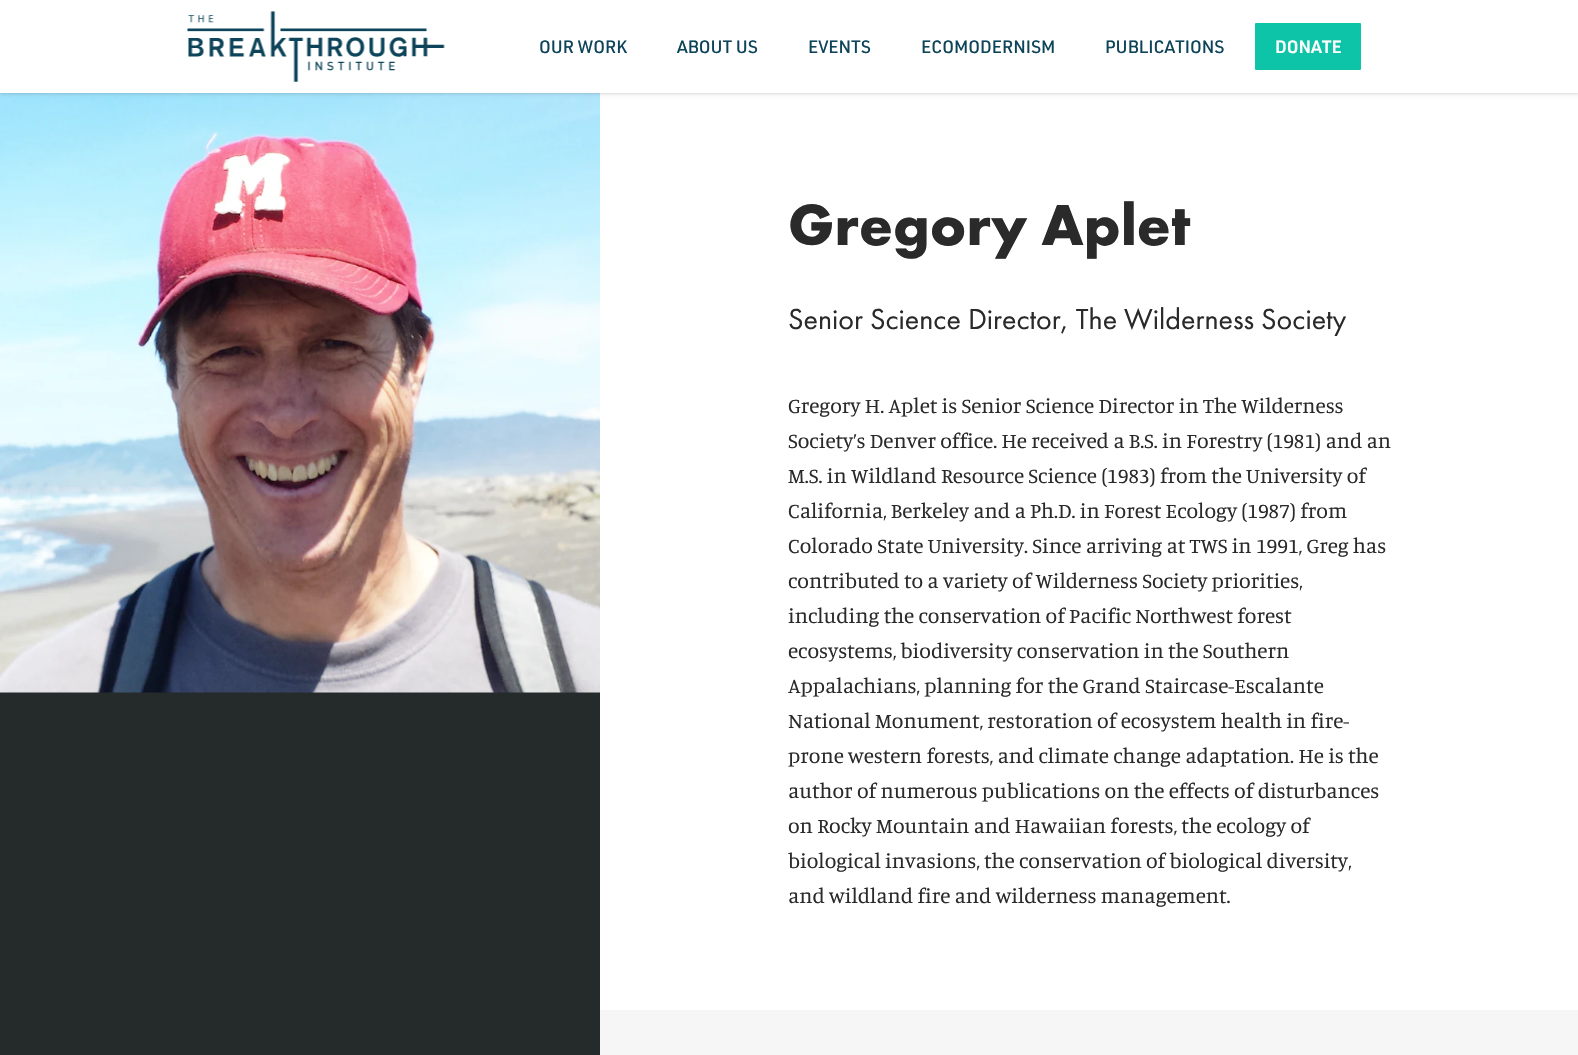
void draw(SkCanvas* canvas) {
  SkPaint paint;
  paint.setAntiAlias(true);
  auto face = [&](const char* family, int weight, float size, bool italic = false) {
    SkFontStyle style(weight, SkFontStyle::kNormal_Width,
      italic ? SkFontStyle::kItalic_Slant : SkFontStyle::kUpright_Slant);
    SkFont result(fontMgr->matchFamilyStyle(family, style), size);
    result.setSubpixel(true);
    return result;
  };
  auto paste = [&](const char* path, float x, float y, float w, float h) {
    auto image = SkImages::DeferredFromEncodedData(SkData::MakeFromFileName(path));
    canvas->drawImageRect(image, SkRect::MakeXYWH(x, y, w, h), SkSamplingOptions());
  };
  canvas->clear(0xffffffff);
  paint.setColor(0xff252a2b);
  canvas->drawRect(SkRect::MakeXYWH(0, 692, 600, 363), paint);
  paste("img/2.png", 0, 93, 600, 600);
  paint.setColor(0x0f000000);
  paint.setMaskFilter(SkMaskFilter::MakeBlur(kNormal_SkBlurStyle, 1));
  canvas->drawRect(SkRect::MakeXYWH(0, 1, 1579, 93), paint);
  paint.setMaskFilter(nullptr);
  paint.setColor(0x1a000000);
  paint.setMaskFilter(SkMaskFilter::MakeBlur(kNormal_SkBlurStyle, 2));
  canvas->drawRect(SkRect::MakeXYWH(0, 1, 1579, 93), paint);
  paint.setMaskFilter(nullptr);
  paint.setColor(0xffffffff);
  canvas->drawRect(SkRect::MakeXYWH(0, 0, 1578, 93), paint);
  paste("img/1.png", 187, 11, 258, 71);
  paint.setColor(0xff0dc3a8);
  canvas->drawRoundRect(SkRect::MakeXYWH(1255, 23, 106, 47), 1, 1, paint);
  paint.setColor(0xfff6f6f6);
  canvas->drawRect(SkRect::MakeXYWH(600, 1010, 978, 45), paint);
  auto f0 = face("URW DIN", 500, 17.5f);
  paint.setColor(0xff0d4459);
  {
    const struct { const char* s; float x, y; } items[] = {
      {"OUR WORK", 539, 53},
      {"ABOUT US", 677, 53},
      {"EVENTS", 808, 53},
      {"ECOMODERNISM", 921, 53},
      {"PUBLICATIONS", 1105, 53},
    };
    for (auto [s, x, y] : items) {
      canvas->drawString(s, x, y, f0, paint);
    }
  }
  auto f1 = face("URW DIN", 600, 17.5f);
  paint.setColor(0xffffffff);
  canvas->drawString("DONATE", 1275, 53, f1, paint);
  auto f2 = face("Futura PT", 700, 60);
  paint.setColor(0xff2a2a2a);
  canvas->drawString("Gregory Aplet", 788, 245, f2, paint);
  auto f3 = face("Futura PT", 400, 30);
  canvas->drawString("Senior Science Director, The Wilderness Society", 788, 329, f3, paint);
  auto f4 = face("Manuale", 400, 21.25f);
  {
    const struct { const char* s; float x, y; } items[] = {
      {"Gregory H. Aplet is Senior Science Director in The Wilderness", 788, 413},
      {"Society’s Denver office. He received a B.S. in Forestry (1981) and an", 788, 448},
      {"M.S. in Wildland Resource Science (1983) from the University of", 788, 483},
      {"California, Berkeley and a Ph.D. in Forest Ecology (1987) from", 788, 518},
      {"Colorado State University. Since arriving at TWS in 1991, Greg has", 788, 553},
      {"contributed to a variety of Wilderness Society priorities,", 788, 588},
      {"including the conservation of Pacific Northwest forest", 788, 623},
      {"ecosystems, biodiversity conservation in the Southern", 788, 658},
      {"Appalachians, planning for the Grand Staircase-Escalante", 788, 693},
      {"National Monument, restoration of ecosystem health in fire-", 788, 728},
      {"prone western forests, and climate change adaptation. He is the", 788, 763},
      {"author of numerous publications on the effects of disturbances", 788, 798},
      {"on Rocky Mountain and Hawaiian forests, the ecology of", 788, 833},
      {"biological invasions, the conservation of biological diversity,", 788, 868},
      {"and wildland fire and wilderness management.", 788, 903},
    };
    for (auto [s, x, y] : items) {
      canvas->drawString(s, x, y, f4, paint);
    }
  }
}
